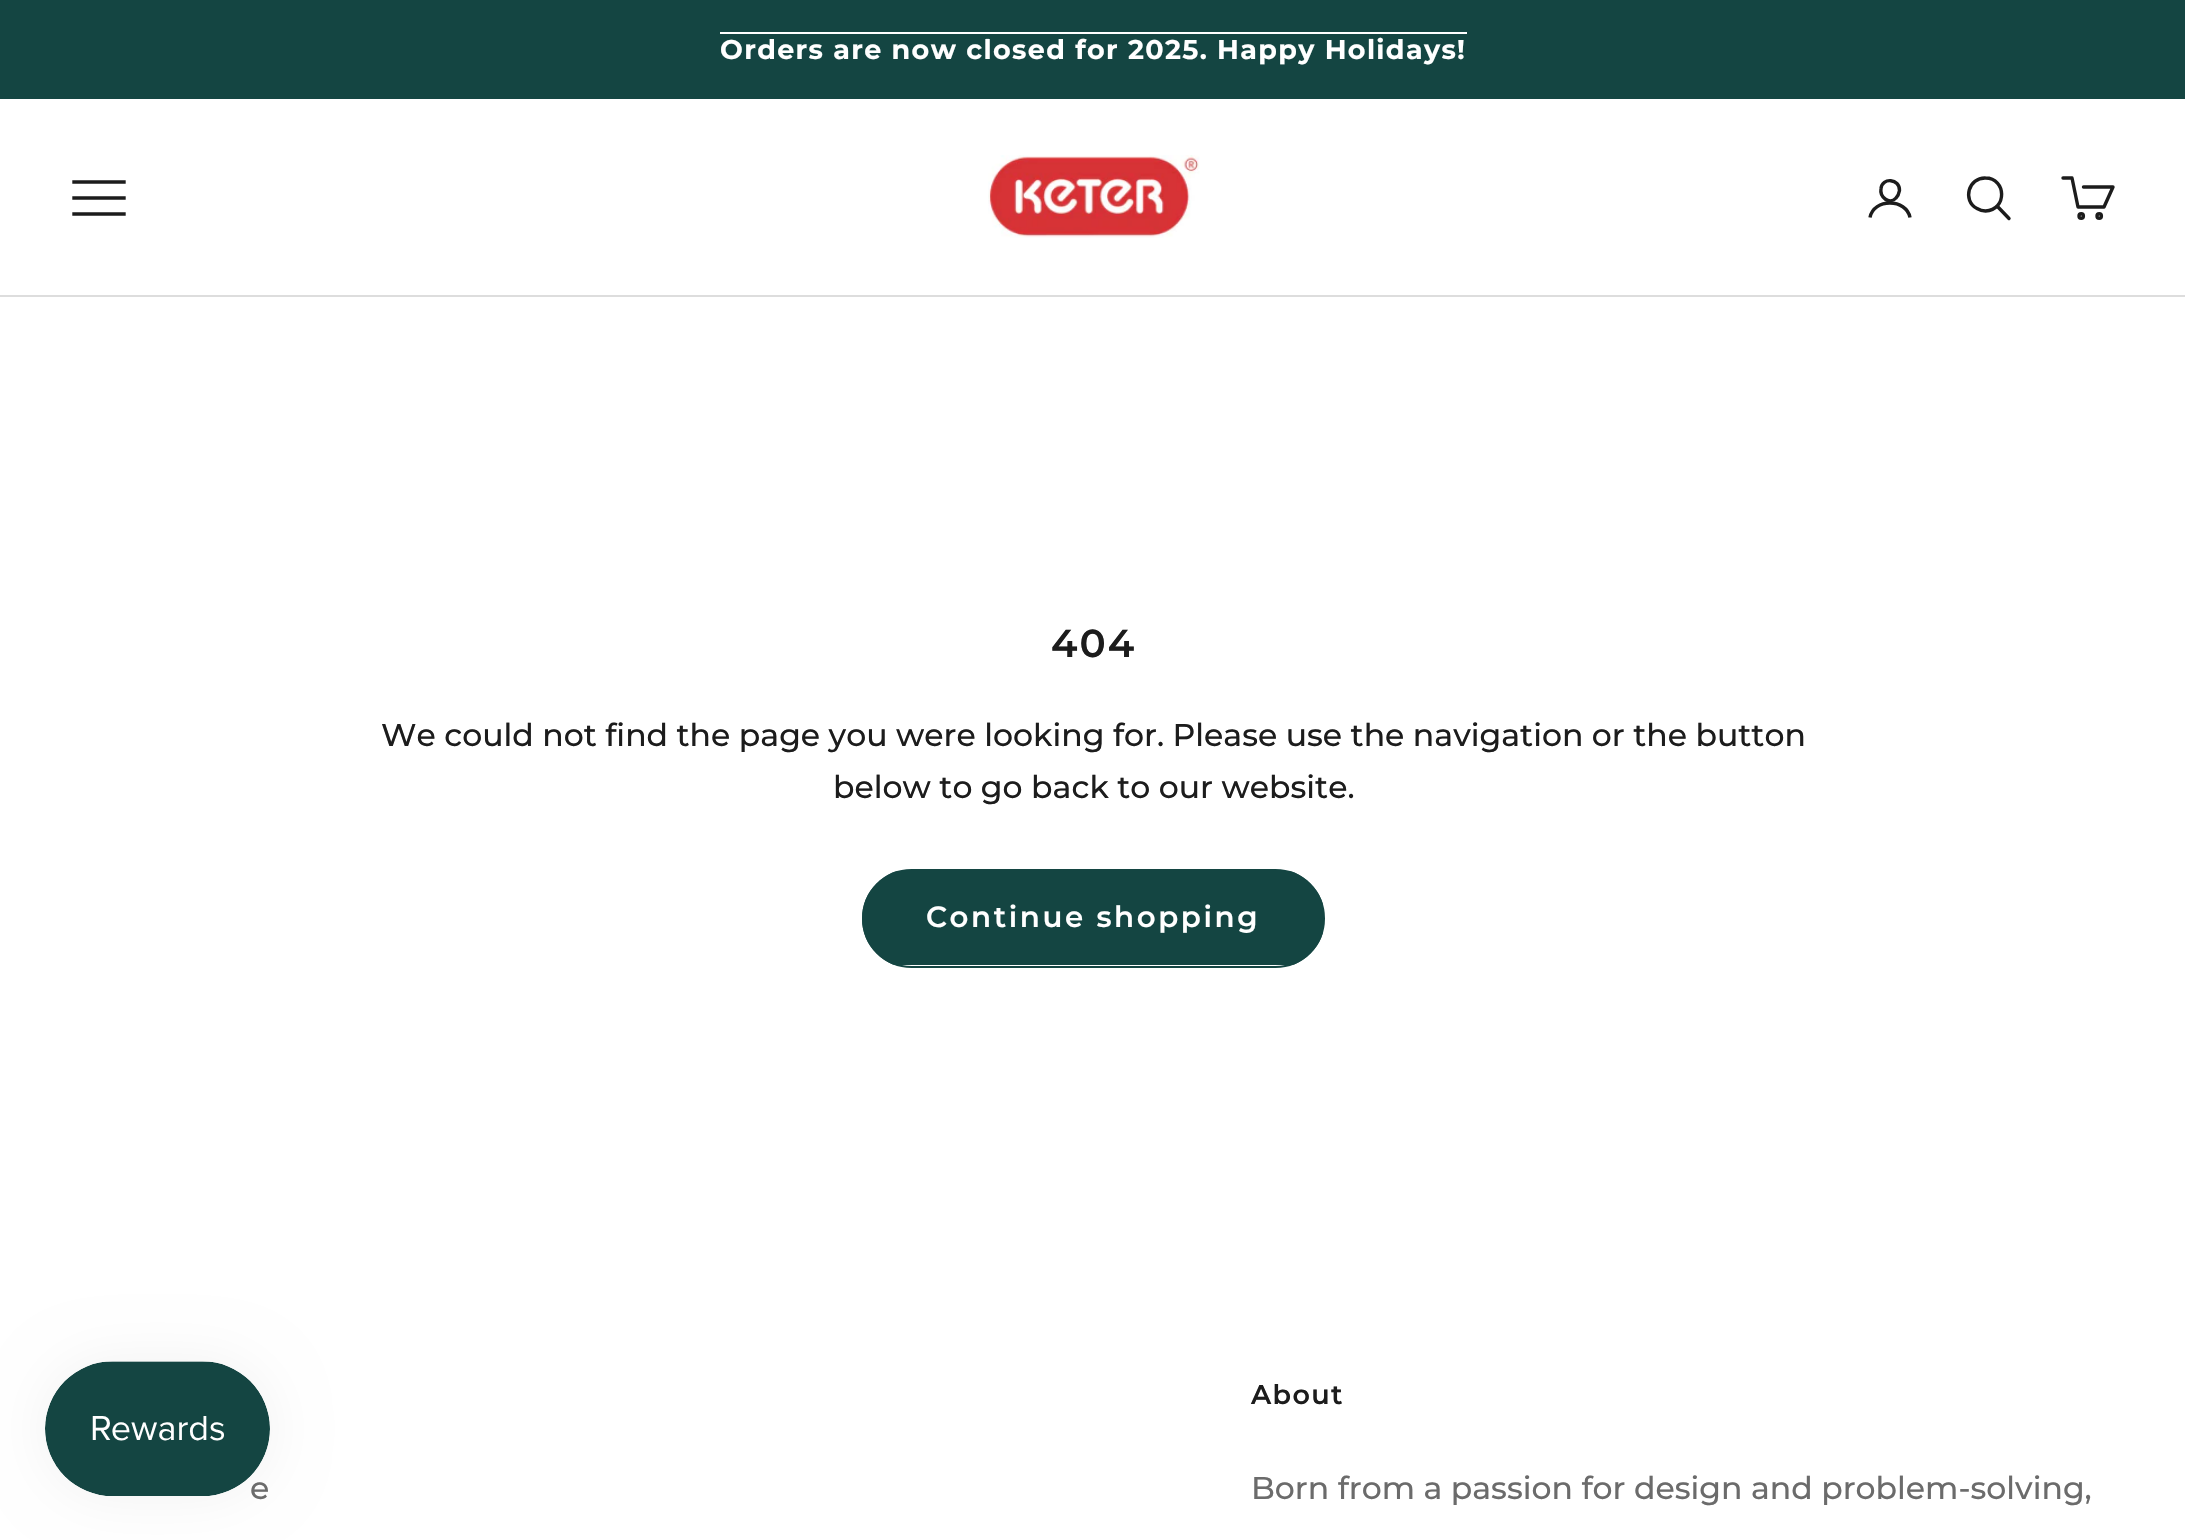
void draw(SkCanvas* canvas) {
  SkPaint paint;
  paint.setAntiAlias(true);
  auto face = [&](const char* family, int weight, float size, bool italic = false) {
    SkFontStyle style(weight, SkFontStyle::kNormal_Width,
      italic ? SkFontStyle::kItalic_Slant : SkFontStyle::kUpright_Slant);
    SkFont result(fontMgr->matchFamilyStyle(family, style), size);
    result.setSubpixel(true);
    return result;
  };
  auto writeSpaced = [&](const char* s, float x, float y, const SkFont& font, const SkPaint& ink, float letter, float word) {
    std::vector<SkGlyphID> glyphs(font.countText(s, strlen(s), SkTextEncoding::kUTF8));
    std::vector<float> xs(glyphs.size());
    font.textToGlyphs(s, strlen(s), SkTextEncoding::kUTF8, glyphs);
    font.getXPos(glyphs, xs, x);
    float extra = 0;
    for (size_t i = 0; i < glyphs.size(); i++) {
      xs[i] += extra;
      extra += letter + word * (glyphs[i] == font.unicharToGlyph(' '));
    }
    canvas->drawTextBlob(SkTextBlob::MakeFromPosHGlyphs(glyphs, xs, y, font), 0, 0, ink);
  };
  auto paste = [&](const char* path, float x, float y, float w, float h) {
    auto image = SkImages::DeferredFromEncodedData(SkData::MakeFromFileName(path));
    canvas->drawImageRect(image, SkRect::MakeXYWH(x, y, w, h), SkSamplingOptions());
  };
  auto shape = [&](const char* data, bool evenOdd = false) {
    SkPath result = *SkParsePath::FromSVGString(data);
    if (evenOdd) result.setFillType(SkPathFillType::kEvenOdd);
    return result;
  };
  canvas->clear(0xffffffff);
  {
    const struct { float x, y, w, h; SkColor color; } items[] = {
      {0, 0, 2185, 99, 0xff144542},
      {720, 32, 747, 2, 0xffffffff},
      {0, 295, 2185, 2, 0xffdddddd},
    };
    for (auto [x, y, w, h, color] : items) {
      paint.setColor(color);
      canvas->drawRect(SkRect::MakeXYWH(x, y, w, h), paint);
    }
  }
  paint.setStroke(true);
  paint.setStrokeWidth(3.4f);
  paint.setStrokeCap(SkPaint::kSquare_Cap);
  paint.setColor(0xff1c1c1c);
  canvas->drawPath(shape("M74 214H124M74 198H124M74 182H124"), paint);
  paste("img/1.png", 988, 155, 212, 83);
  paint.setStrokeCap(SkPaint::kRound_Cap);
  paint.setStrokeJoin(SkPaint::kRound_Join);
  canvas->drawPath(shape("M1899.5 190.5C1899 193.5 1898 196 1896 198C1889.5 205.5 1879.5 197 1881 188.5C1882 177 1900 178.5 1899.5 190.5Z"), paint);
  paint.setStrokeCap(SkPaint::kButt_Cap);
  paint.setStrokeJoin(SkPaint::kMiter_Join);
  canvas->drawPath(shape("M1870 217.5C1873.5 198 1906.5 198.5 1910 217.5"), paint);
  canvas->drawPath(shape("M1985.5 178C1968.5 177.5 1962 200.5 1977 208.5C1979.5 210 1982.5 211 1985.5 211C2007.5 210 2006.5 178 1985.5 178Z"), paint);
  paint.setStrokeCap(SkPaint::kRound_Cap);
  canvas->drawPath(shape("M1997.5 206.5L2009 218.5"), paint);
  paint.setStrokeJoin(SkPaint::kRound_Join);
  canvas->drawPath(shape("M2083.5 187H2113L2104 207H2078L2072 178H2063"), paint);
  paint.setStrokeCap(SkPaint::kButt_Cap);
  paint.setStrokeJoin(SkPaint::kMiter_Join);
  canvas->drawCircle(2081.2f, 216, 2.2f, paint);
  canvas->drawCircle(2099.2f, 216, 2.2f, paint);
  paint.setStroke(false);
  paint.setColor(0x0d000000);
  paint.setMaskFilter(SkMaskFilter::MakeBlur(kNormal_SkBlurStyle, 28));
  canvas->drawRoundRect(SkRect::MakeXYWH(45, 1361, 225, 135), 67.5f, 67.5f, paint);
  paint.setMaskFilter(nullptr);
  canvas->save();
  canvas->clipPath(shape("M911.5 869H1275.5C1303 869 1325 891 1325 918.5C1325 946 1303 968 1275.5 968H911.5C884 968 862 946 862 918.5C862 891 884 869 911.5 869Z"), true);
  paint.setColor(0xff144542);
  canvas->drawRect(SkRect::MakeXYWH(862, 871, 461, 94), paint);
  canvas->restore();
  paint.setStroke(true);
  paint.setStrokeWidth(2);
  canvas->drawRoundRect(SkRect::MakeXYWH(863, 870, 461, 97), 48.5f, 48.5f, paint);
  auto f0 = face("Montserrat", 700, 27);
  paint.setStroke(false);
  paint.setColor(0xffffffff);
  writeSpaced("Orders are now closed for 2025. Happy Holidays!", 720, 59, f0, paint, 1.35f, 0);
  auto f1 = face("Montserrat", 600, 39);
  paint.setColor(0xff1c1c1c);
  writeSpaced("404", 1051, 657, f1, paint, 2, 0);
  auto f2 = face("Montserrat", 500, 31.5f);
  canvas->drawString("We could not find the page you were looking for. Please use the navigation or the button", 381, 746, f2, paint);
  canvas->drawString("below to go back to our website.", 833, 798, f2, paint);
  auto f3 = face("Montserrat", 600, 29.25f);
  paint.setColor(0xffffffff);
  writeSpaced("Continue shopping", 926, 927, f3, paint, 2.6f, 0);
  paint.setColor(0xff6b6b6b);
  canvas->drawString("e", 250, 1499, f2, paint);
  paste("img/2.png", 45, 1361, 225, 135);
  auto f4 = face("Montserrat", 600, 27);
  paint.setColor(0xff1c1c1c);
  writeSpaced("About", 1251, 1404, f4, paint, 1.35f, 0);
  paint.setColor(0xff6b6b6b);
  canvas->drawString("Born from a passion for design and problem-solving,", 1251, 1499, f2, paint);
}
